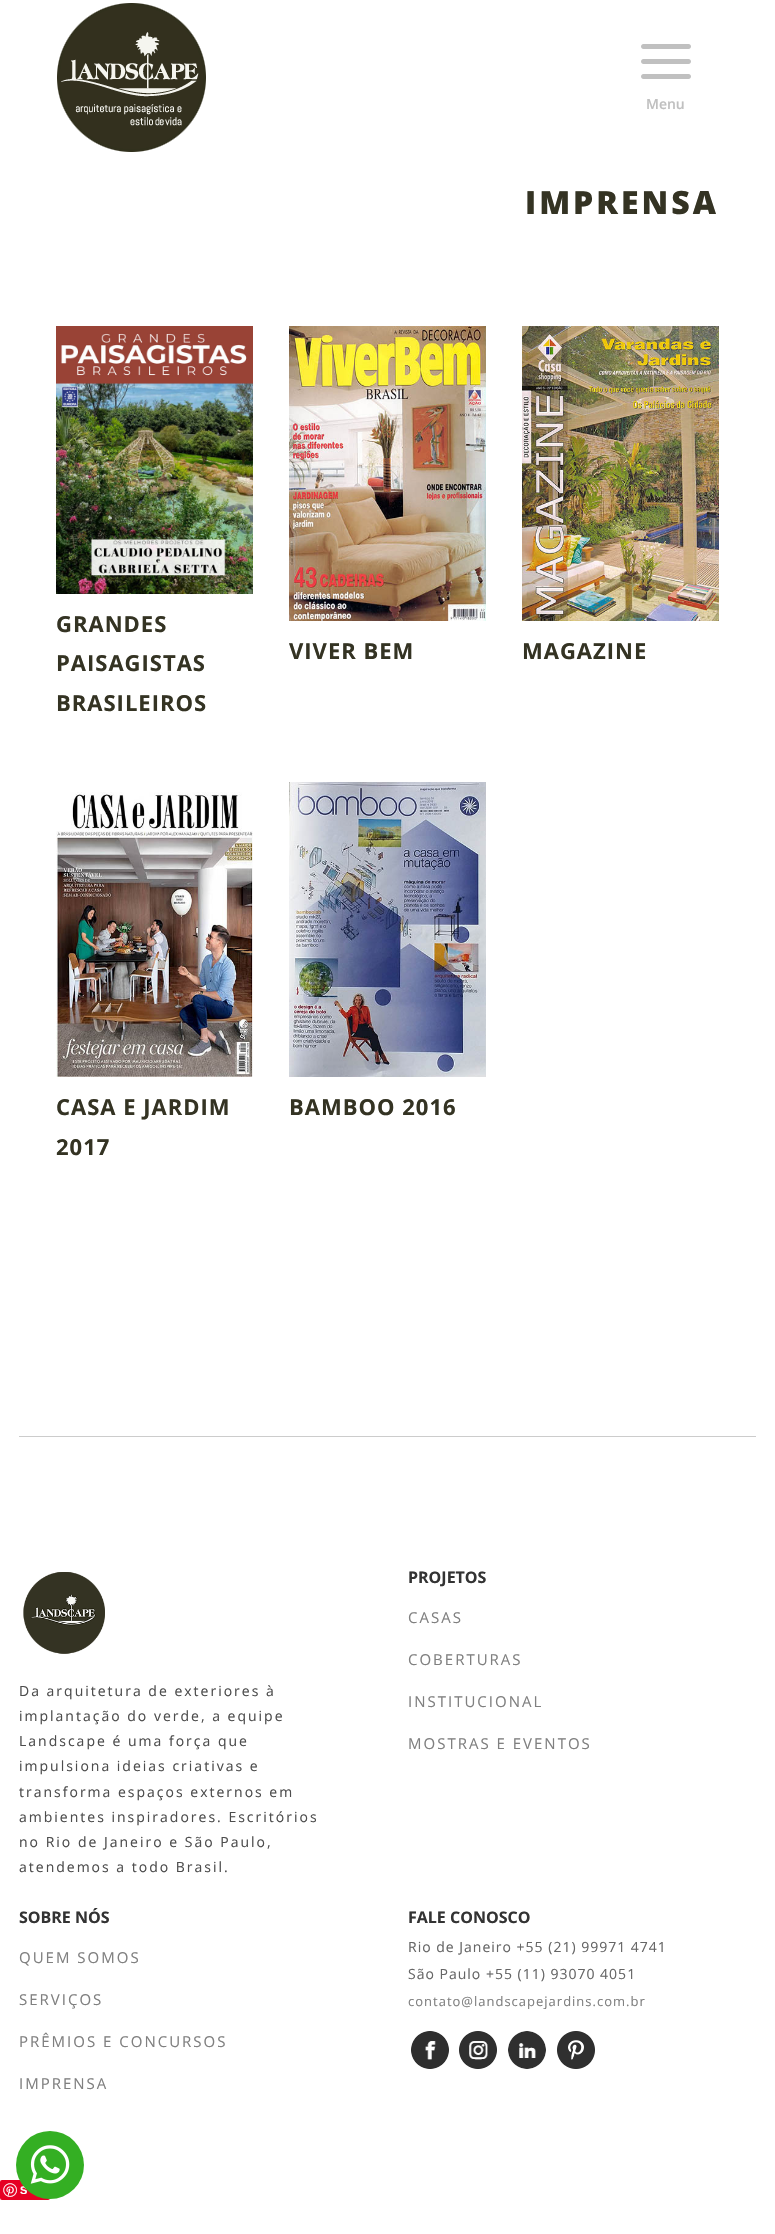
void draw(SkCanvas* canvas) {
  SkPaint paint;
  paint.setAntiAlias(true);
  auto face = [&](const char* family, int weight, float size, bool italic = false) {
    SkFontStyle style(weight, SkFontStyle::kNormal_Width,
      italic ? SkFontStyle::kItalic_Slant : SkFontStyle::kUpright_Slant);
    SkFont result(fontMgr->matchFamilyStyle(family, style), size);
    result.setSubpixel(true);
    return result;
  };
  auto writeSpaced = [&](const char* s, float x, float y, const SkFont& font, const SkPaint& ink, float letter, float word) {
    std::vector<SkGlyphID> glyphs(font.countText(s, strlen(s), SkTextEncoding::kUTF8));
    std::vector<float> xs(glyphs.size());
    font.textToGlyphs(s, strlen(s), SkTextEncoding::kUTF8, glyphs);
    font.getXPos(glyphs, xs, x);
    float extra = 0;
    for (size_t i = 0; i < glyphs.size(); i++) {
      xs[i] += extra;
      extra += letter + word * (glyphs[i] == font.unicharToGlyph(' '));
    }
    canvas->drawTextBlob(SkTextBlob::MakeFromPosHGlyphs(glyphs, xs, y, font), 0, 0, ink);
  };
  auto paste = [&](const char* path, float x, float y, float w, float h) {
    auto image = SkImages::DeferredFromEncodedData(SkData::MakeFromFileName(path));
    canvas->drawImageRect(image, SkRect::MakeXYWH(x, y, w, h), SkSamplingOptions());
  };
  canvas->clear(0xffffffff);
  paste("img/1.png", 641, 44, 50, 35);
  paste("img/2.png", 57, 3, 149, 149);
  paste("img/3.png", 56, 326, 197, 268);
  paste("img/4.png", 289, 326, 197, 295);
  paste("img/5.png", 522, 326, 197, 295);
  paste("img/6.png", 56, 792, 197, 285);
  paste("img/7.png", 289, 782, 197, 295);
  paint.setColor(0xffcccccc);
  canvas->drawRect(SkRect::MakeXYWH(19, 1436, 737, 1), paint);
  paste("img/8.png", 23, 1572, 82, 82);
  paste("img/9.png", 411, 2031, 38, 38);
  paste("img/10.png", 459, 2031, 38, 38);
  paste("img/11.png", 508, 2031, 38, 38);
  paste("img/12.png", 557, 2031, 38, 38);
  paint.setColor(0xffe60023);
  canvas->drawRoundRect(SkRect::MakeXYWH(0, 2180, 50, 20), 2, 2, paint);
  paste("img/13.png", 3, 2183, 14, 14);
  auto f0 = face("Open Sans", 600, 14);
  paint.setColor(0xffc0c0c0);
  canvas->drawString("Menu", 646, 109, f0, paint);
  auto f1 = face("Open Sans", 800, 32);
  paint.setColor(0xff343323);
  writeSpaced("IMPRENSA", 525, 214, f1, paint, 3, 0);
  auto f2 = face("Open Sans", 700, 22);
  {
    const struct { const char* s; float x, y; } items[] = {
      {"GRANDES", 56, 632},
      {"PAISAGISTAS", 56, 671},
      {"BRASILEIROS", 56, 711},
      {"VIVER BEM", 289, 659},
      {"MAGAZINE", 522, 659},
      {"CASA E JARDIM", 56, 1115},
      {"2017", 56, 1155},
      {"BAMBOO 2016", 289, 1115},
    };
    for (auto [s, x, y] : items) {
      writeSpaced(s, x, y, f2, paint, 1, 0);
    }
  }
  auto f3 = face("Open Sans", 700, 16);
  paint.setColor(0xff333333);
  canvas->drawString("PROJETOS", 408, 1583, f3, paint);
  auto f4 = face("Open Sans", 400, 15);
  paint.setColor(0xff808080);
  {
    const struct { const char* s; float x, y; } items[] = {
      {"CASAS", 408, 1623},
      {"COBERTURAS", 408, 1665},
      {"INSTITUCIONAL", 408, 1707},
      {"MOSTRAS E EVENTOS", 408, 1749},
    };
    for (auto [s, x, y] : items) {
      writeSpaced(s, x, y, f4, paint, 2, 0);
    }
  }
  auto f5 = face("Open Sans", 400, 14);
  paint.setColor(0xff4d4d4d);
  {
    const struct { const char* s; float x, y; } items[] = {
      {"Da arquitetura de exteriores à", 19, 1696},
      {"implantação do verde, a equipe", 19, 1721},
      {"Landscape é uma força que", 19, 1746},
      {"impulsiona ideias criativas e", 19, 1771},
      {"transforma espaços externos em", 19, 1797},
      {"ambientes inspiradores. Escritórios", 19, 1822},
      {"no Rio de Janeiro e São Paulo,", 19, 1847},
      {"atendemos a todo Brasil.", 19, 1872},
    };
    for (auto [s, x, y] : items) {
      writeSpaced(s, x, y, f5, paint, 2, 0);
    }
  }
  paint.setColor(0xff333333);
  canvas->drawString("SOBRE NÓS", 19, 1923, f3, paint);
  paint.setColor(0xff808080);
  {
    const struct { const char* s; float x, y; } items[] = {
      {"QUEM SOMOS", 19, 1963},
      {"SERVIÇOS", 19, 2005},
      {"PRÊMIOS E CONCURSOS", 19, 2047},
      {"IMPRENSA", 19, 2089},
    };
    for (auto [s, x, y] : items) {
      writeSpaced(s, x, y, f4, paint, 2, 0);
    }
  }
  paint.setColor(0xff333333);
  canvas->drawString("FALE CONOSCO", 408, 1923, f3, paint);
  paint.setColor(0xff666666);
  writeSpaced("Rio de Janeiro +55 (21) 99971 4741", 408, 1952, f5, paint, 1, 0);
  writeSpaced("São Paulo +55 (11) 93070 4051", 408, 1979, f5, paint, 1, 0);
  auto f6 = face("Open Sans", 400, 13);
  paint.setColor(0xff808080);
  writeSpaced("contato@landscapejardins.com.br", 408, 2006, f6, paint, 1, 0);
  auto f7 = face("Liberation Sans", 700, 11);
  paint.setColor(0xffffffff);
  canvas->drawString("S", 20, 2194, f7, paint);
  paint.setColor(0xff34af23);
  canvas->drawCircle(50, 2165, 34, paint);
  paste("img/14.png", 30, 2145, 40, 39);
}
